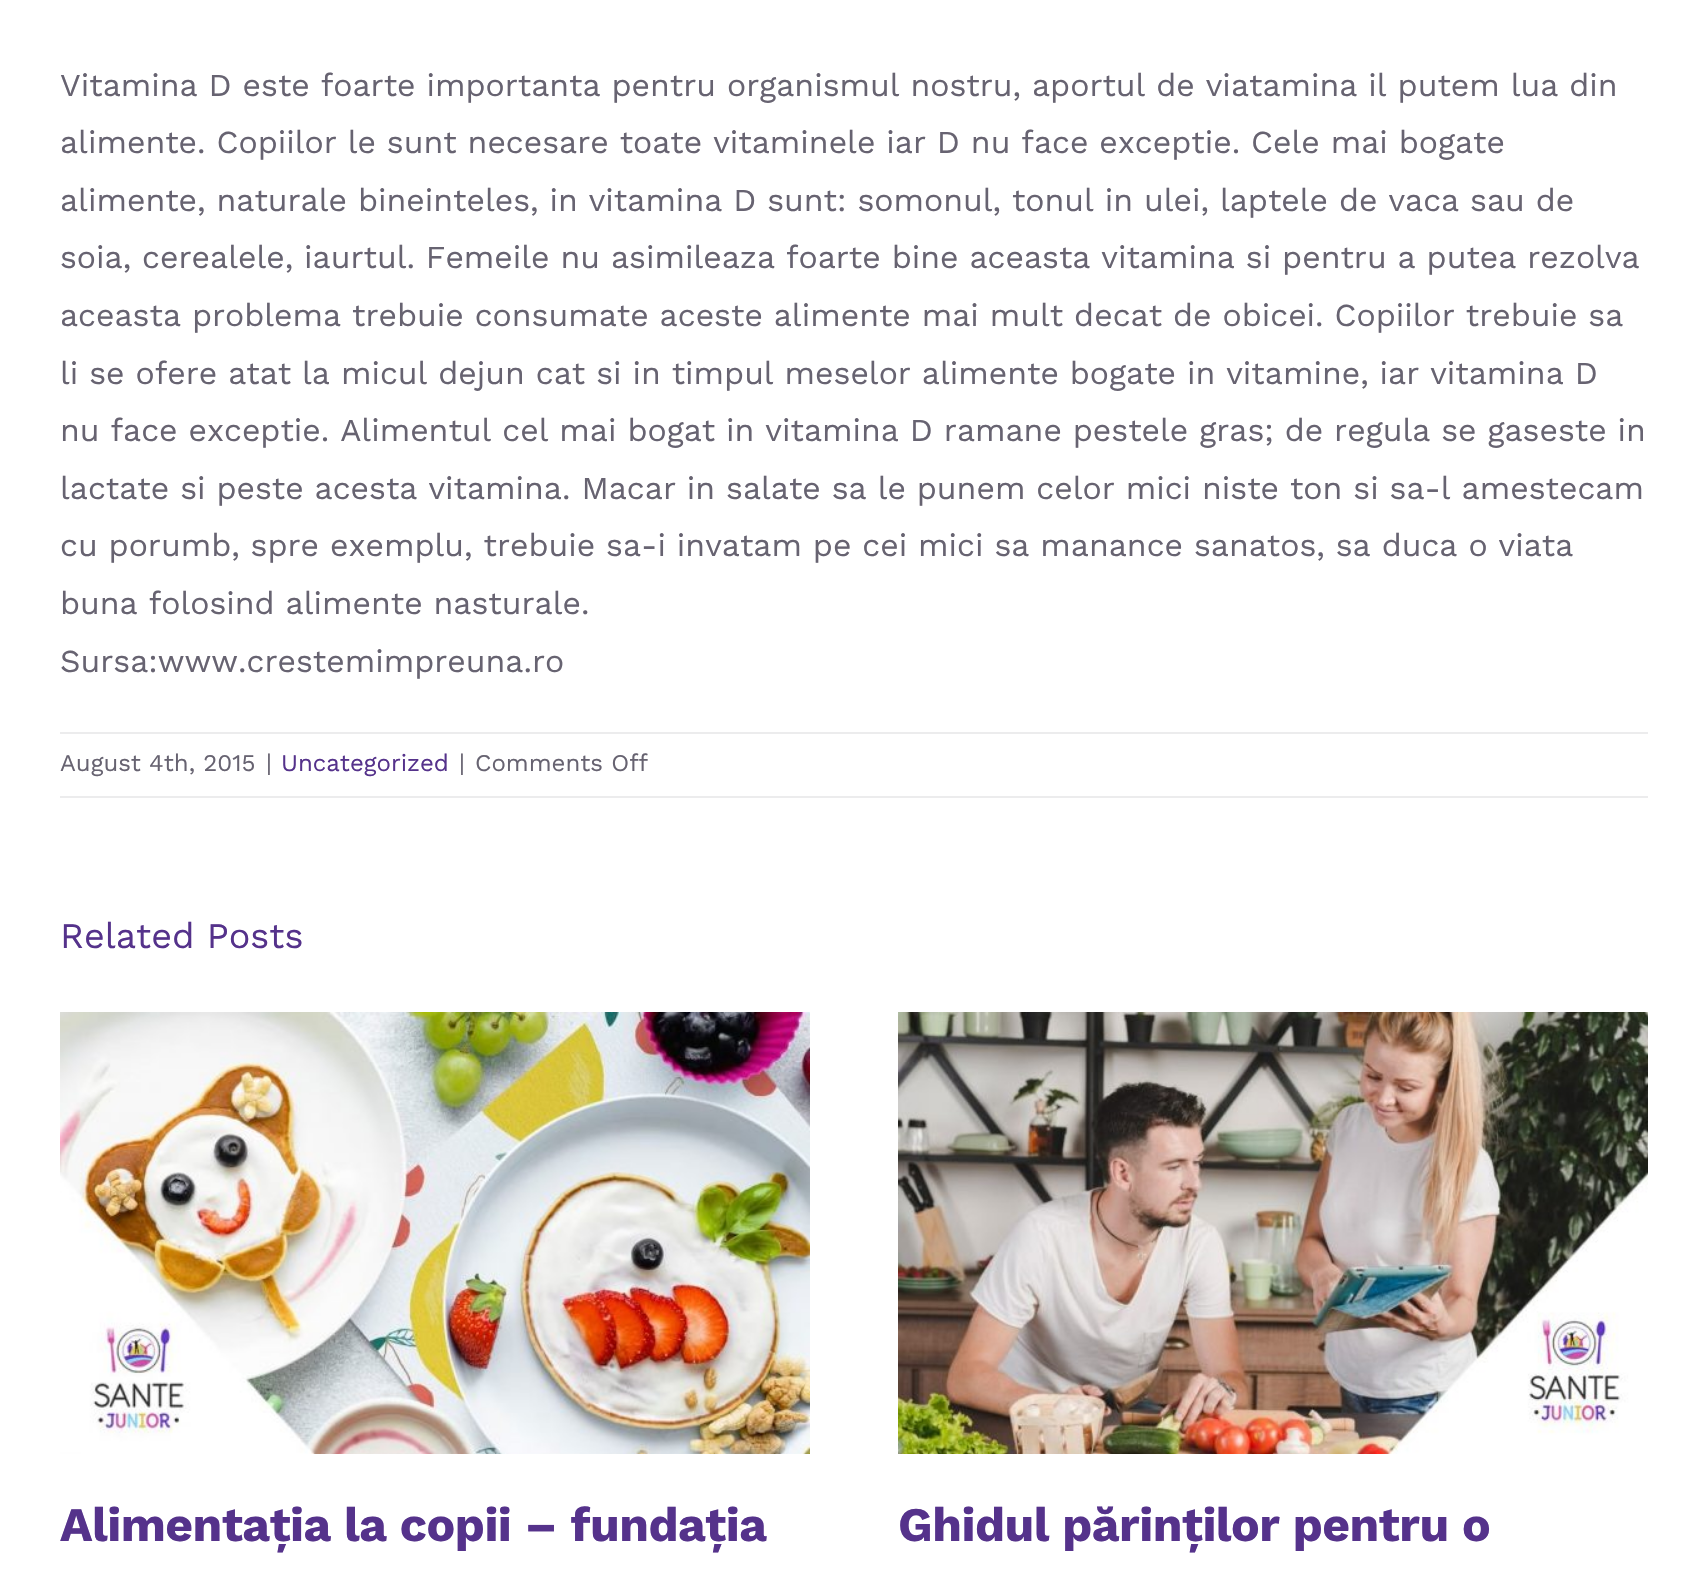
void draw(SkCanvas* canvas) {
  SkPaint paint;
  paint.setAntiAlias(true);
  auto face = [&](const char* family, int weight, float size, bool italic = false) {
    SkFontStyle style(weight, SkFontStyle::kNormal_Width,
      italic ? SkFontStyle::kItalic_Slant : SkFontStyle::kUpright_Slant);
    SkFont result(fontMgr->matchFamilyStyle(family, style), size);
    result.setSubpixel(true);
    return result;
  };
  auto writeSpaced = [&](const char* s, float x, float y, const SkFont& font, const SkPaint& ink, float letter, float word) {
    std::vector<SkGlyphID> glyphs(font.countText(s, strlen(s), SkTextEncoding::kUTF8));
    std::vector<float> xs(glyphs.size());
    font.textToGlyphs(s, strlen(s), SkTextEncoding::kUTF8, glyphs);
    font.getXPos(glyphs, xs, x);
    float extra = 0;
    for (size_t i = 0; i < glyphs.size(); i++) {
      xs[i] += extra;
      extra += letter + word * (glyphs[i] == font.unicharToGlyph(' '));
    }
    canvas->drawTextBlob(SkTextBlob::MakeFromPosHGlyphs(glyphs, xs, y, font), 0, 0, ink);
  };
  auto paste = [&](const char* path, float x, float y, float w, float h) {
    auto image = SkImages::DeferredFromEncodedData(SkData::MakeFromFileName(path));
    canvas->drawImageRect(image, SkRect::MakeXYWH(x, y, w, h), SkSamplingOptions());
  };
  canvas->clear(0xffffffff);
  paint.setColor(0xffececed);
  canvas->drawRect(SkRect::MakeXYWH(60, 732, 1588, 2), paint);
  canvas->drawRect(SkRect::MakeXYWH(60, 796, 1588, 2), paint);
  paste("img/1.png", 60, 1012, 750, 442);
  paste("img/2.png", 898, 1012, 750, 442);
  auto f0 = face("Work Sans", 400, 32);
  paint.setColor(0xff676371);
  {
    const struct { const char* s; float x, y; } items[] = {
      {"Vitamina D este foarte importanta pentru organismul nostru, aportul de viatamina il putem lua din", 60, 96},
      {"alimente. Copiilor le sunt necesare toate vitaminele iar D nu face exceptie. Cele mai bogate", 60, 153},
      {"alimente, naturale bineinteles, in vitamina D sunt: somonul, tonul in ulei, laptele de vaca sau de", 60, 211},
      {"soia, cerealele, iaurtul. Femeile nu asimileaza foarte bine aceasta vitamina si pentru a putea rezolva", 60, 268},
      {"aceasta problema trebuie consumate aceste alimente mai mult decat de obicei. Copiilor trebuie sa", 60, 326},
      {"li se ofere atat la micul dejun cat si in timpul meselor alimente bogate in vitamine, iar vitamina D", 60, 384},
      {"nu face exceptie. Alimentul cel mai bogat in vitamina D ramane pestele gras; de regula se gaseste in", 60, 441},
      {"lactate si peste acesta vitamina. Macar in salate sa le punem celor mici niste ton si sa-l amestecam", 60, 499},
      {"cu porumb, spre exemplu, trebuie sa-i invatam pe cei mici sa manance sanatos, sa duca o viata", 60, 556},
      {"buna folosind alimente nasturale.", 60, 614},
      {"Sursa:www.crestemimpreuna.ro", 60, 672},
    };
    for (auto [s, x, y] : items) {
      canvas->drawString(s, x, y, f0, paint);
    }
  }
  auto f1 = face("Work Sans", 400, 24);
  canvas->drawString("August 4th, 2015", 60, 771, f1, paint);
  canvas->drawString("|", 266, 771, f1, paint);
  paint.setColor(0xff55328b);
  canvas->drawString("Uncategorized", 281, 771, f1, paint);
  paint.setColor(0xff676371);
  canvas->drawString("|", 459, 771, f1, paint);
  canvas->drawString("Comments Off", 475, 771, f1, paint);
  auto f2 = face("Work Sans", 400, 36);
  paint.setColor(0xff55328b);
  canvas->drawString("Related Posts", 60, 948, f2, paint);
  auto f3 = face("Work Sans", 700, 48);
  writeSpaced("Alimentația la copii – fundația", 60, 1541, f3, paint, -0.5f, 0);
  writeSpaced("Ghidul părinților pentru o", 898, 1541, f3, paint, -0.5f, 0);
}
